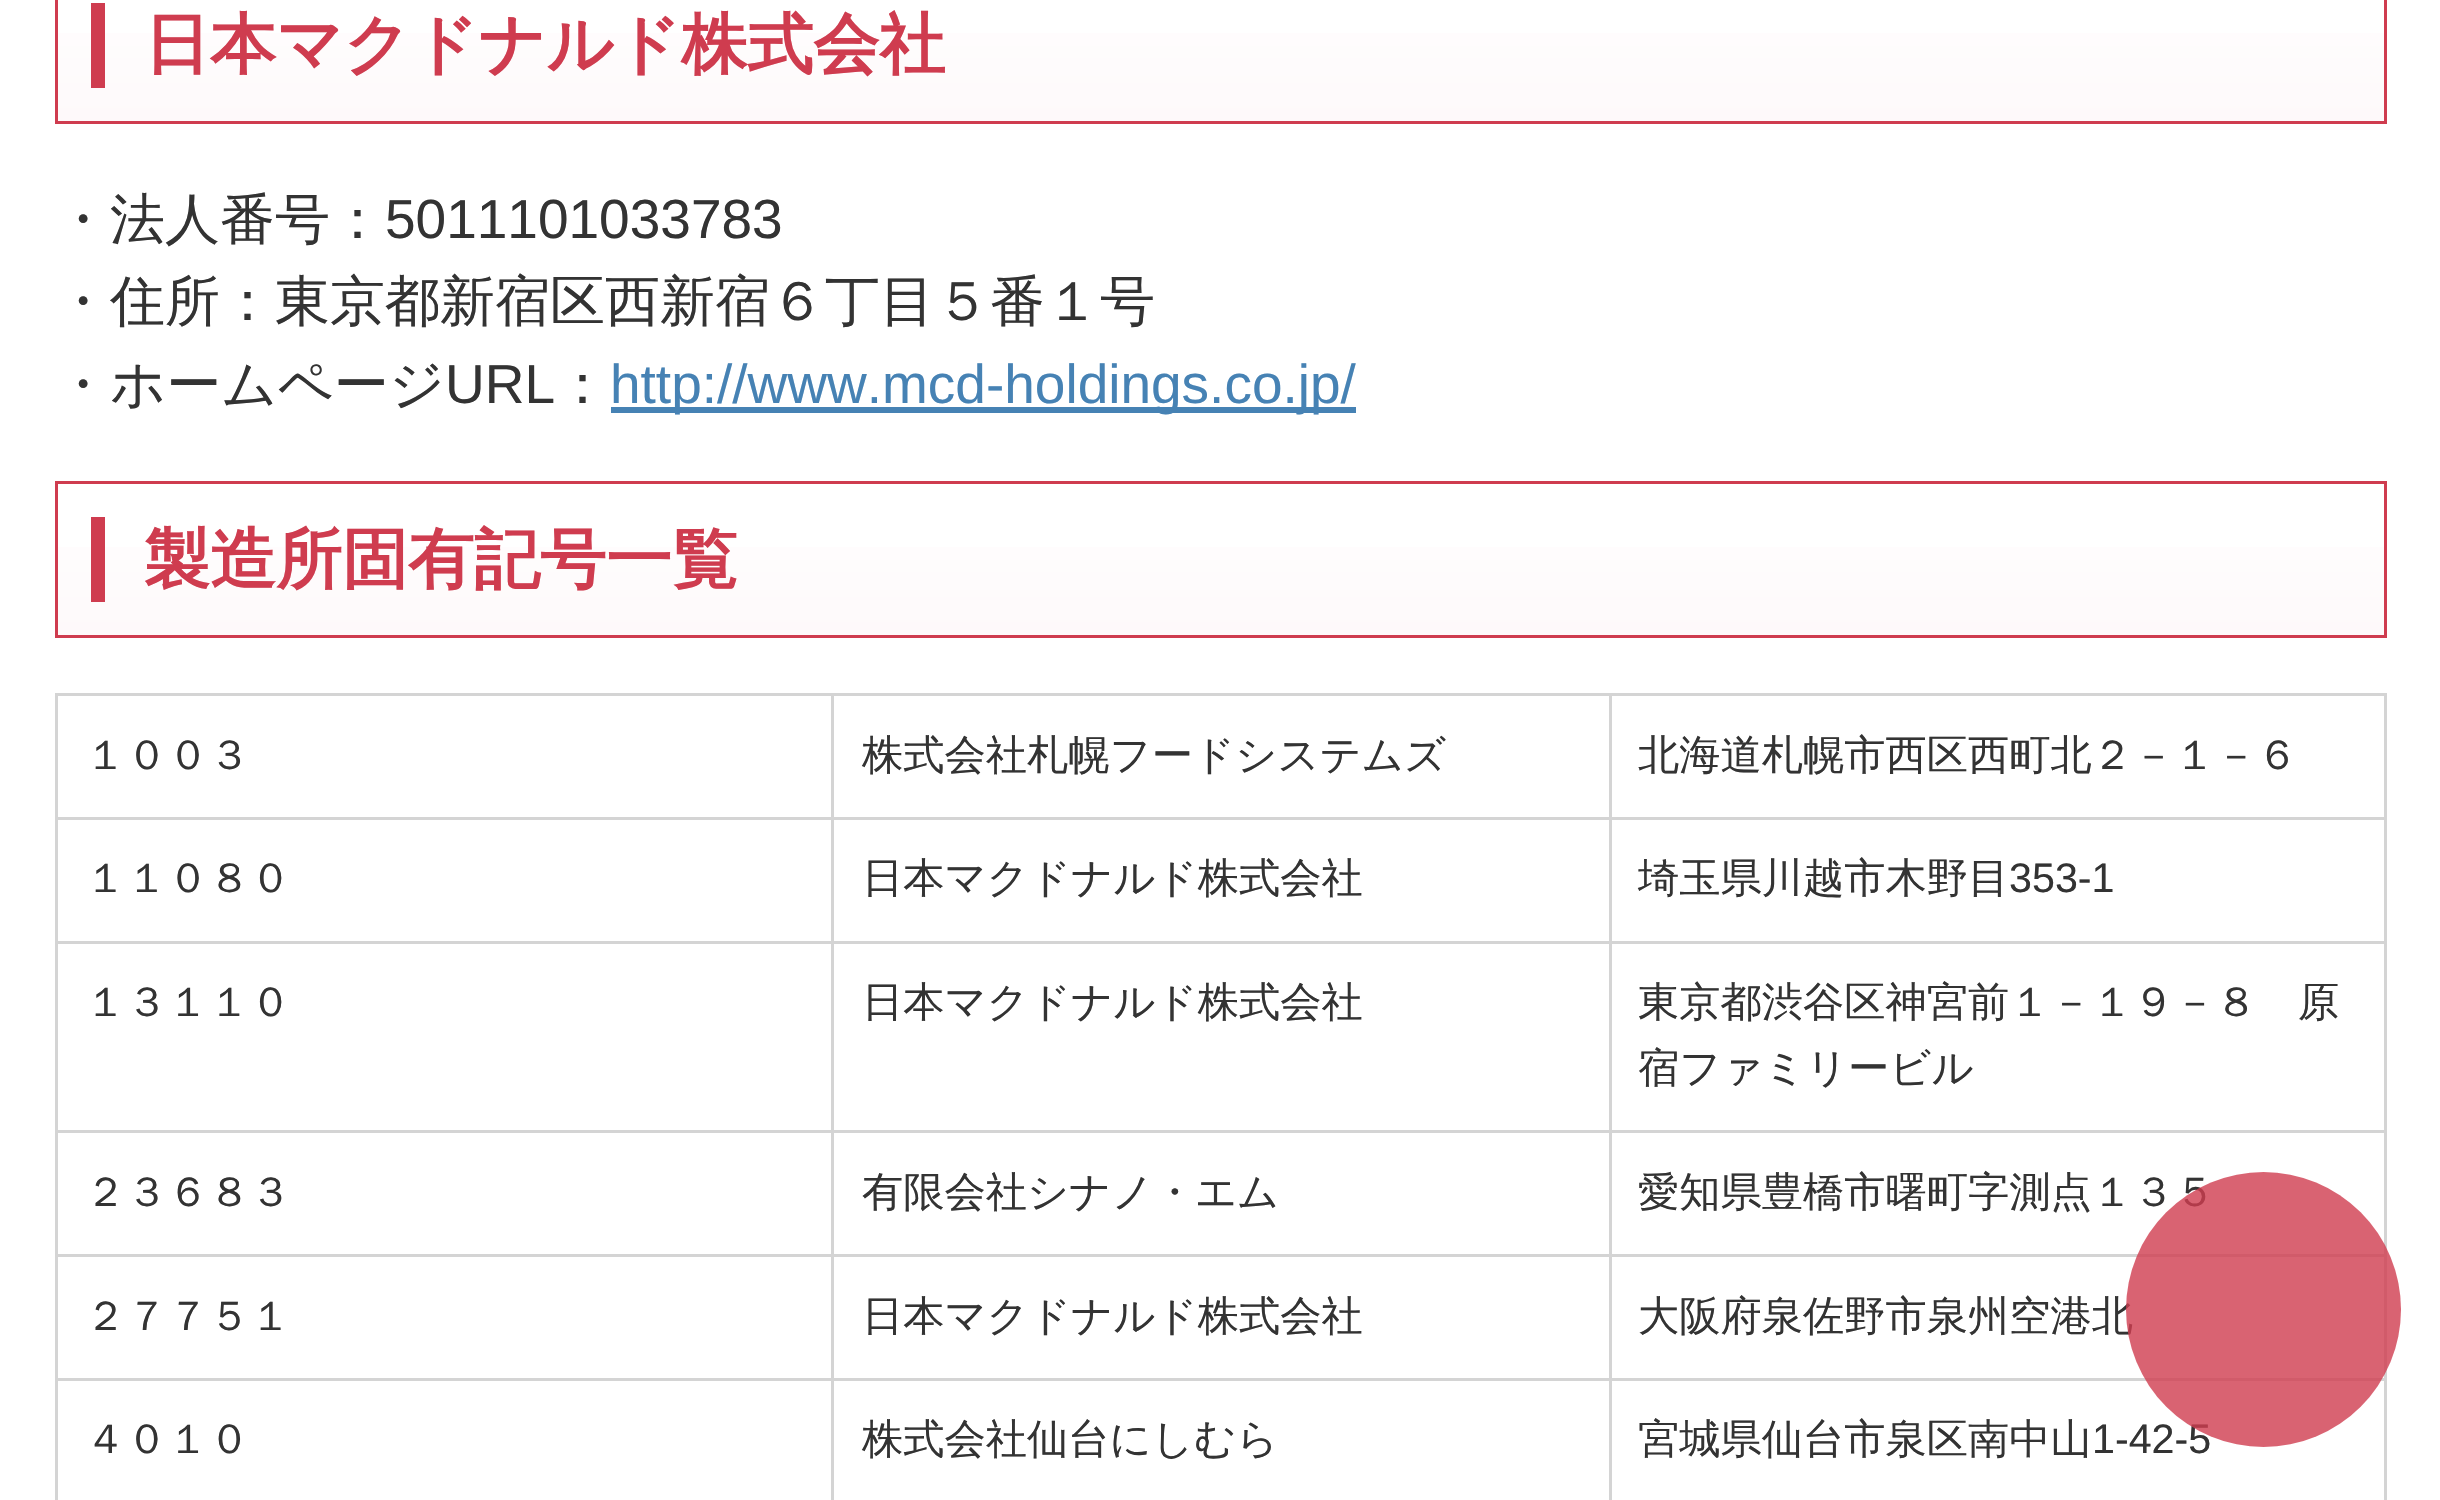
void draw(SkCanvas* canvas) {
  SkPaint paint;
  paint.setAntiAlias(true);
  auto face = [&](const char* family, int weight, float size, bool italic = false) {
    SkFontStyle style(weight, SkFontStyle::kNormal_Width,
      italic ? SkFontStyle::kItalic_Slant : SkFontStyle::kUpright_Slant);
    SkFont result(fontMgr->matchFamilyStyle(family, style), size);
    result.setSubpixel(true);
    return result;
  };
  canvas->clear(0xffffffff);
  {
    const SkColor colors[] = {0xffffffff, 0xfffef9fa};
    const float stops[] = {0, 1};
    const SkPoint ends[] = {{1221, -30}, {1221, 121}};
    paint.setShader(SkGradientShader::MakeLinear(ends, colors, stops, 2, SkTileMode::kClamp));
    paint.setAlpha(255);
  }
  canvas->drawRect(SkRect::MakeXYWH(58, 33, 2326, 88), paint);
  paint.setStroke(true);
  paint.setStrokeWidth(3);
  paint.setShader(nullptr);
  paint.setColor(0xffcf3c4f);
  canvas->drawRect(SkRect::MakeXYWH(56.5f, -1.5f, 2329, 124), paint);
  paint.setStroke(false);
  canvas->drawRect(SkRect::MakeXYWH(91, 3, 14, 85), paint);
  paint.setColor(0xff4682b4);
  canvas->drawRect(SkRect::MakeXYWH(611, 407, 745, 6), paint);
  {
    const SkColor colors[] = {0xffffffff, 0xfffef9fa};
    const float stops[] = {0, 1};
    const SkPoint ends[] = {{1221, 484}, {1221, 635}};
    paint.setShader(SkGradientShader::MakeLinear(ends, colors, stops, 2, SkTileMode::kClamp));
    paint.setAlpha(255);
  }
  canvas->drawRect(SkRect::MakeXYWH(58, 547, 2326, 88), paint);
  paint.setStroke(true);
  paint.setShader(nullptr);
  paint.setColor(0xffcf3c4f);
  canvas->drawRect(SkRect::MakeXYWH(56.5f, 482.5f, 2329, 154), paint);
  paint.setStroke(false);
  {
    const struct { float x, y, w, h; SkColor color; } items[] = {
      {91, 517, 14, 85, 0xffcf3c4f},
      {55, 693, 2332, 3, 0xffd4d4d4},
      {2384, 693, 3, 807, 0xffd4d4d4},
      {1609, 1378, 3, 122, 0xffd4d4d4},
      {1609, 1378, 778, 3, 0xffd4d4d4},
      {1609, 1254, 3, 127, 0xffd4d4d4},
      {1609, 1254, 778, 3, 0xffd4d4d4},
      {1609, 1130, 3, 127, 0xffd4d4d4},
      {1609, 1130, 778, 3, 0xffd4d4d4},
      {1609, 941, 3, 192, 0xffd4d4d4},
      {1609, 941, 778, 3, 0xffd4d4d4},
      {1609, 817, 3, 126, 0xffd4d4d4},
      {1609, 817, 778, 3, 0xffd4d4d4},
      {1609, 693, 3, 127, 0xffd4d4d4},
      {831, 1378, 3, 122, 0xffd4d4d4},
      {831, 1378, 781, 3, 0xffd4d4d4},
      {831, 1254, 3, 127, 0xffd4d4d4},
      {831, 1254, 781, 3, 0xffd4d4d4},
      {831, 1130, 3, 127, 0xffd4d4d4},
      {831, 1130, 781, 3, 0xffd4d4d4},
      {831, 941, 3, 192, 0xffd4d4d4},
      {831, 941, 781, 3, 0xffd4d4d4},
      {831, 817, 3, 126, 0xffd4d4d4},
      {831, 817, 781, 3, 0xffd4d4d4},
      {831, 693, 3, 127, 0xffd4d4d4},
      {55, 1378, 3, 122, 0xffd4d4d4},
      {55, 1378, 778, 3, 0xffd4d4d4},
      {55, 1254, 3, 127, 0xffd4d4d4},
      {55, 1254, 778, 3, 0xffd4d4d4},
      {55, 1130, 3, 127, 0xffd4d4d4},
      {55, 1130, 778, 3, 0xffd4d4d4},
      {55, 941, 3, 192, 0xffd4d4d4},
      {55, 941, 778, 3, 0xffd4d4d4},
      {55, 817, 3, 126, 0xffd4d4d4},
      {55, 817, 778, 3, 0xffd4d4d4},
      {55, 693, 3, 127, 0xffd4d4d4},
    };
    for (auto [x, y, w, h, color] : items) {
      paint.setColor(color);
      canvas->drawRect(SkRect::MakeXYWH(x, y, w, h), paint);
    }
  }
  auto f0 = face("WenQuanYi Zen Hei", 700, 66);
  paint.setColor(0xffcf3c4f);
  canvas->drawString("日本マクドナルド株式会社", 144, 67, f0, paint);
  auto f1 = face("WenQuanYi Zen Hei", 500, 55);
  paint.setColor(0xff333333);
  canvas->drawString("・法人番号：", 55, 238, f1, paint);
  auto f2 = face("Liberation Sans", 400, 55);
  canvas->drawString("5011101033783", 385, 238, f2, paint);
  canvas->drawString("・住所：東京都新宿区西新宿６丁目５番１号", 55, 320, f1, paint);
  canvas->drawString("・ホームページ", 55, 403, f1, paint);
  canvas->drawString("URL", 445, 403, f2, paint);
  canvas->drawString("：", 555, 403, f1, paint);
  paint.setColor(0xff4682b4);
  canvas->drawString("http://www.mcd-holdings.co.jp/", 610, 403, f2, paint);
  paint.setColor(0xffcf3c4f);
  canvas->drawString("製造所固有記号一覧", 144, 582, f0, paint);
  auto f3 = face("WenQuanYi Zen Hei", 500, 41.25f);
  paint.setColor(0xff333333);
  {
    const struct { const char* s; float x, y; } items[] = {
      {"１００３", 85, 769},
      {"株式会社札幌フードシステムズ", 862, 769},
      {"北海道札幌市西区西町北２－１－６", 1638, 769},
      {"１１０８０", 85, 892},
      {"日本マクドナルド株式会社", 862, 892},
      {"埼玉県川越市木野目", 1638, 892},
    };
    for (auto [s, x, y] : items) {
      canvas->drawString(s, x, y, f3, paint);
    }
  }
  auto f4 = face("Liberation Sans", 400, 41.25f);
  canvas->drawString("353-1", 2009, 892, f4, paint);
  {
    const struct { const char* s; float x, y; } items[] = {
      {"１３１１０", 85, 1016},
      {"日本マクドナルド株式会社", 862, 1016},
      {"東京都渋谷区神宮前１－１９－８　原", 1638, 1016},
      {"宿ファミリービル", 1638, 1082},
      {"２３６８３", 85, 1206},
      {"有限会社シナノ・エム", 862, 1206},
      {"愛知県豊橋市曙町字測点１３５", 1638, 1206},
      {"２７７５１", 85, 1330},
      {"日本マクドナルド株式会社", 862, 1330},
      {"大阪府泉佐野市泉州空港北", 1638, 1330},
      {"４０１０", 85, 1453},
      {"株式会社仙台にしむら", 862, 1453},
      {"宮城県仙台市泉区南中山", 1638, 1453},
    };
    for (auto [s, x, y] : items) {
      canvas->drawString(s, x, y, f3, paint);
    }
  }
  canvas->drawString("1-42-5", 2092, 1453, f4, paint);
  paint.setColor(0xcccf3c4f);
  canvas->drawCircle(2263.5f, 1309.5f, 137.5f, paint);
}
